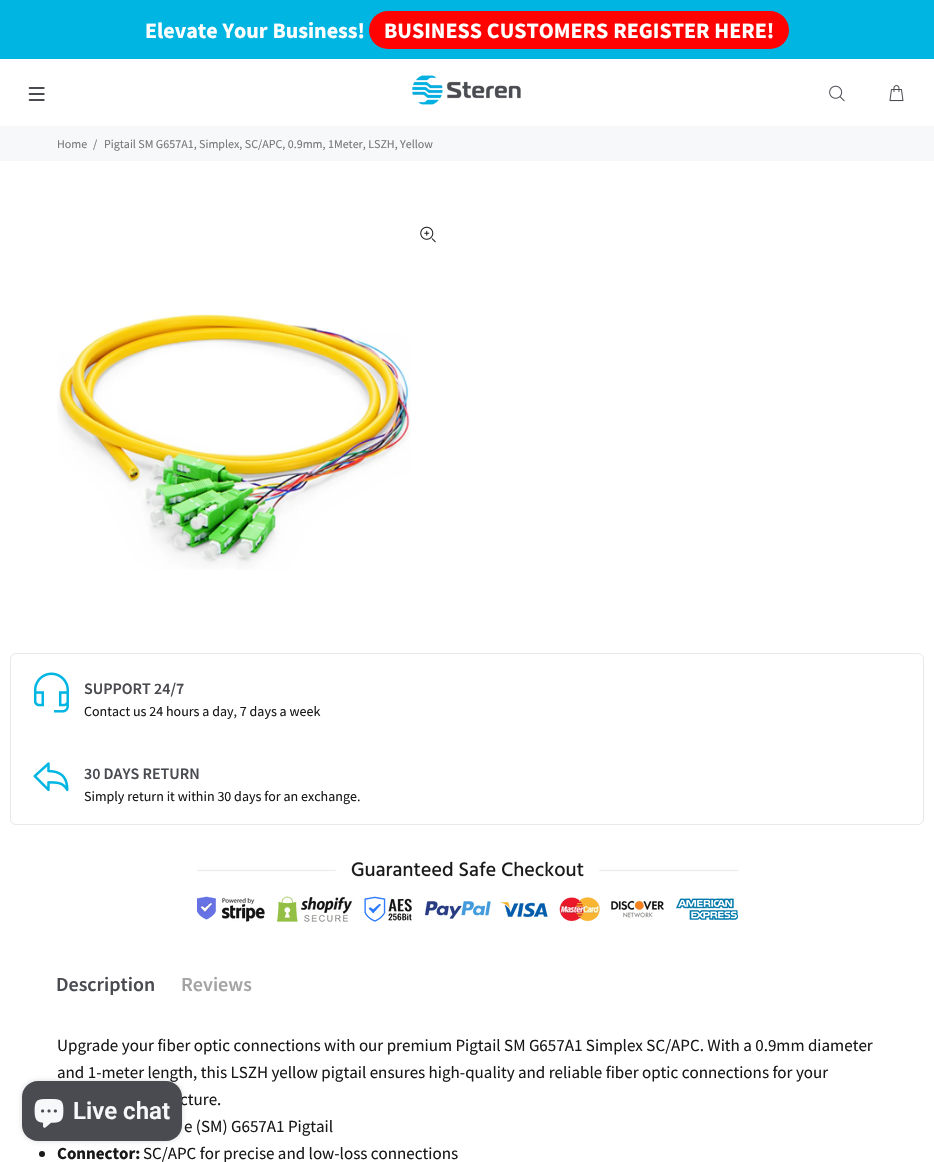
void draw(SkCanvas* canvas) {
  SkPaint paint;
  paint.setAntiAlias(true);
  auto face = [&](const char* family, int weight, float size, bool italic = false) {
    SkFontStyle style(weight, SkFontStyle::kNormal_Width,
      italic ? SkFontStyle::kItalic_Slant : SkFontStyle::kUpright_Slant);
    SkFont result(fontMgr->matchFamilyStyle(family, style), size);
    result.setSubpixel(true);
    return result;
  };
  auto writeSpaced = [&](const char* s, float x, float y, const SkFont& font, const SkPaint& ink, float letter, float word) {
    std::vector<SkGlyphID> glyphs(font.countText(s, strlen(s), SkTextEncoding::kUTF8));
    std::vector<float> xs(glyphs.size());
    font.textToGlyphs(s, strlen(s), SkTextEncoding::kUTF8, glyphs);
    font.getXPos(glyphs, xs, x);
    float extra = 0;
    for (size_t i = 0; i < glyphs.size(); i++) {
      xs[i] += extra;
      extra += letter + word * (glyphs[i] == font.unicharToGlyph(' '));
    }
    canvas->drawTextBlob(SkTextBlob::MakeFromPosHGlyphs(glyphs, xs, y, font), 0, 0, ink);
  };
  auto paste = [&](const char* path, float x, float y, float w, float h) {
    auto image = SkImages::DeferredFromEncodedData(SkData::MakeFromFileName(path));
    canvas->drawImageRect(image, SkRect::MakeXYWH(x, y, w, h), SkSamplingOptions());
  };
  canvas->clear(0xffffffff);
  paint.setColor(0xff00b5e2);
  canvas->drawRect(SkRect::MakeXYWH(0, 0, 934, 59), paint);
  paint.setColor(0xffff0303);
  canvas->drawRoundRect(SkRect::MakeXYWH(369, 11, 420, 38), 19, 19, paint);
  paste("img/1.png", 28, 87, 17, 14);
  paste("img/2.png", 412, 75, 109, 30);
  paste("img/3.png", 829, 85, 16, 17);
  paste("img/4.png", 889, 85, 15, 17);
  paint.setColor(0xfff7f8fa);
  canvas->drawRect(SkRect::MakeXYWH(0, 126, 934, 35), paint);
  paste("img/5.png", 420, 226, 16, 17);
  paste("img/6.png", 57, 314, 354, 256);
  paint.setStroke(true);
  paint.setStrokeWidth(1);
  paint.setColor(0xffe9e7e7);
  canvas->drawRoundRect(SkRect::MakeXYWH(10.5f, 653.5f, 913, 171), 5.5f, 5.5f, paint);
  paste("img/7.png", 33, 672, 36, 41);
  paste("img/8.png", 33, 762, 36, 30);
  paste("img/9.png", 197, 861, 541, 61);
  paint.setStroke(false);
  paint.setColor(0xff191919);
  canvas->drawCircle(42, 1154, 3, paint);
  paint.setColor(0x26000000);
  paint.setMaskFilter(SkMaskFilter::MakeBlur(kNormal_SkBlurStyle, 2.5f));
  canvas->drawRoundRect(SkRect::MakeXYWH(22, 1081, 160, 60), 16, 16, paint);
  paint.setMaskFilter(nullptr);
  auto f0 = face("Source Sans Pro", 700, 22);
  paint.setColor(0xffffffff);
  writeSpaced("Elevate Your Business!", 145, 38, f0, paint, 0, 0.5f);
  writeSpaced("BUSINESS CUSTOMERS REGISTER HERE!", 384, 38, f0, paint, 0, 0.5f);
  auto f1 = face("Source Sans Pro", 400, 12);
  paint.setColor(0xff777777);
  {
    const struct { const char* s; float x, y; } items[] = {
      {"Home", 57, 148},
      {"/", 93, 148},
      {"Pigtail SM G657A1, Simplex, SC/APC, 0.9mm, 1Meter, LSZH, Yellow", 104, 148},
    };
    for (auto [s, x, y] : items) {
      canvas->drawString(s, x, y, f1, paint);
    }
  }
  auto f2 = face("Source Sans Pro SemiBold", 600, 16);
  paint.setColor(0xff4a4b51);
  canvas->drawString("SUPPORT 24/7", 84, 694, f2, paint);
  auto f3 = face("Source Sans Pro", 400, 14);
  paint.setColor(0xff191919);
  canvas->drawString("Contact us 24 hours a day, 7 days a week", 84, 716, f3, paint);
  paint.setColor(0xff4a4b51);
  canvas->drawString("30 DAYS RETURN", 84, 779, f2, paint);
  paint.setColor(0xff191919);
  canvas->drawString("Simply return it within 30 days for an exchange.", 84, 801, f3, paint);
  auto f4 = face("Source Sans Pro SemiBold", 600, 20);
  paint.setColor(0xff4a4b51);
  canvas->drawString("Description", 56, 991, f4, paint);
  paint.setColor(0xffa4a4a4);
  canvas->drawString("Reviews", 181, 991, f4, paint);
  auto f5 = face("Source Sans Pro", 400, 17);
  paint.setColor(0xff191919);
  {
    const struct { const char* s; float x, y; } items[] = {
      {"Upgrade your fiber optic connections with our premium Pigtail SM G657A1 Simplex SC/APC. With a 0.9mm diameter", 57, 1051},
      {"and 1-meter length, this LSZH yellow pigtail ensures high-quality and reliable fiber optic connections for your", 57, 1078},
      {"cture.", 180, 1105},
      {"e (SM) G657A1 Pigtail", 184, 1132},
    };
    for (auto [s, x, y] : items) {
      canvas->drawString(s, x, y, f5, paint);
    }
  }
  auto f6 = face("Source Sans Pro", 700, 17);
  canvas->drawString("Connector:", 57, 1159, f6, paint);
  canvas->drawString("SC/APC for precise and low-loss connections", 143, 1159, f5, paint);
  paint.setColor(0xff4a4b51);
  canvas->drawRoundRect(SkRect::MakeXYWH(22, 1081, 160, 60), 16, 16, paint);
  paste("img/10.png", 34, 1099, 30, 29);
  auto f7 = face("Roboto", 600, 24);
  paint.setColor(0xfff7f8fa);
  canvas->drawString("Live chat", 73, 1119, f7, paint);
}
